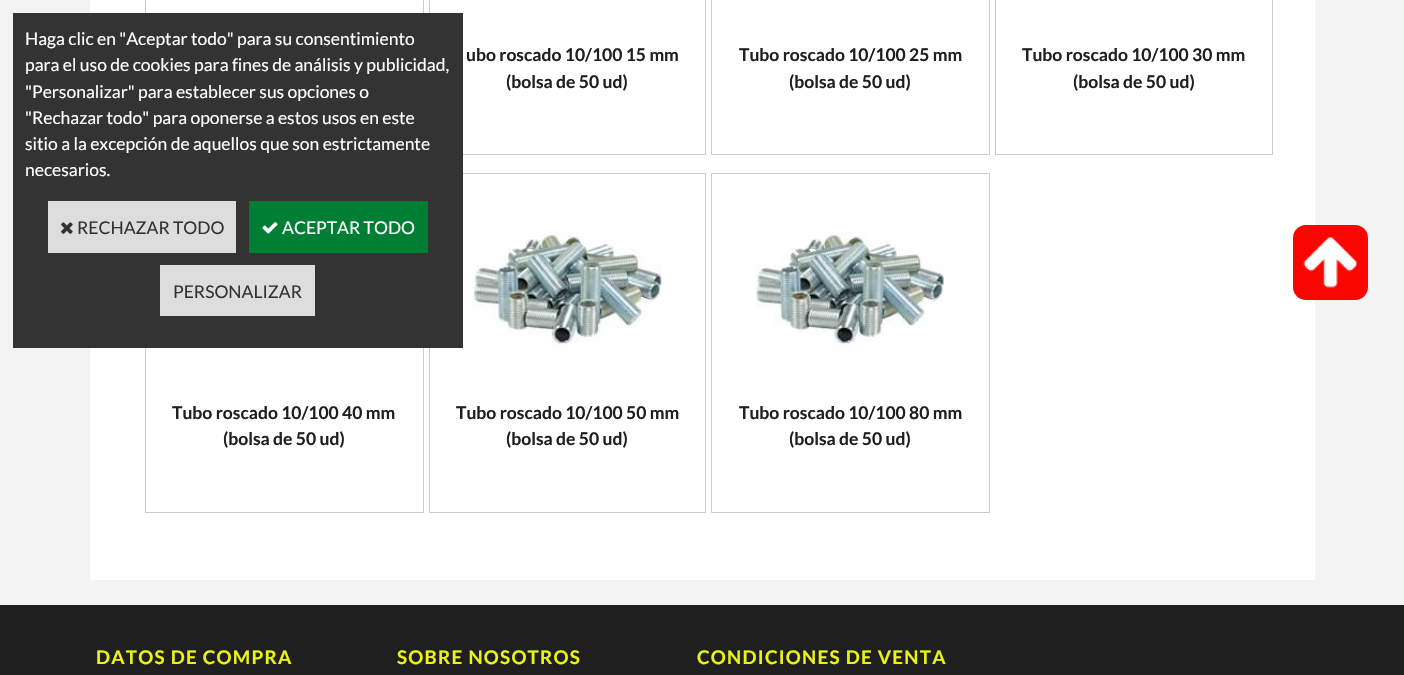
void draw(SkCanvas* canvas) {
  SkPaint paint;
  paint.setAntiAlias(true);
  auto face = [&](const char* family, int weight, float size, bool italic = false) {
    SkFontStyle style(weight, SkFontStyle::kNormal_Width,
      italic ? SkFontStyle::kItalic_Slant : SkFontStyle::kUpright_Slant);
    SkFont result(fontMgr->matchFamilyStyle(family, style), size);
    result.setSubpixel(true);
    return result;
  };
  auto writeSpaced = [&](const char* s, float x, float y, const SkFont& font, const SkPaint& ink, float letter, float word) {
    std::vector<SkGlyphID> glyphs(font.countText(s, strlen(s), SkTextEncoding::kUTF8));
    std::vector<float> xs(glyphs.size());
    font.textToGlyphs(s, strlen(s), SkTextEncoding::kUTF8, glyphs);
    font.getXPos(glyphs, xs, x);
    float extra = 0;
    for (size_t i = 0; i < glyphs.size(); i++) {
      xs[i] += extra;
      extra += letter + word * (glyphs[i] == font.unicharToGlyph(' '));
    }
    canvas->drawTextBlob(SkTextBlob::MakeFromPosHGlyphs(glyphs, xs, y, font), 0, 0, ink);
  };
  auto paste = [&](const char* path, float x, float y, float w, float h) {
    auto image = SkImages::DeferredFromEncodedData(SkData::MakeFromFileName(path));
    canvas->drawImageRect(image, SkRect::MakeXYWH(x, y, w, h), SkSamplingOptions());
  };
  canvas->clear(0xfff3f3f3);
  paint.setColor(0xffffffff);
  canvas->drawRect(SkRect::MakeXYWH(90, 0, 1225, 580), paint);
  paint.setStroke(true);
  paint.setStrokeWidth(1);
  paint.setColor(0xffcccccc);
  canvas->drawRect(SkRect::MakeXYWH(145.5f, -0.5f, 278, 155), paint);
  canvas->drawRect(SkRect::MakeXYWH(429.5f, -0.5f, 276, 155), paint);
  canvas->drawRect(SkRect::MakeXYWH(145.5f, 173.5f, 278, 339), paint);
  canvas->drawRect(SkRect::MakeXYWH(429.5f, 173.5f, 276, 339), paint);
  paint.setStroke(false);
  paint.setColor(0xff333333);
  canvas->drawRect(SkRect::MakeXYWH(13, 13, 450, 335), paint);
  paint.setColor(0xffdddddd);
  canvas->drawRect(SkRect::MakeXYWH(48, 201, 188, 52), paint);
  paste("img/1.png", 61, 222, 12, 12);
  paint.setColor(0xff007e33);
  canvas->drawRect(SkRect::MakeXYWH(249, 201, 179, 52), paint);
  paste("img/2.png", 262, 222, 16, 12);
  paint.setColor(0xffdddddd);
  canvas->drawRect(SkRect::MakeXYWH(160, 265, 155, 51), paint);
  paint.setColor(0xfffafafa);
  canvas->drawRect(SkRect::MakeXYWH(196, 0, 1, 1), paint);
  paint.setStroke(true);
  paint.setColor(0xffcccccc);
  canvas->drawRect(SkRect::MakeXYWH(711.5f, -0.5f, 278, 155), paint);
  canvas->drawRect(SkRect::MakeXYWH(995.5f, -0.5f, 277, 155), paint);
  paste("img/3.png", 190, 348, 188, 2);
  paste("img/4.png", 473, 231, 189, 119);
  canvas->drawRect(SkRect::MakeXYWH(711.5f, 173.5f, 278, 339), paint);
  paste("img/5.png", 756, 231, 188, 119);
  paint.setStroke(false);
  paint.setColor(0xfff90600);
  canvas->drawRoundRect(SkRect::MakeXYWH(1293, 225, 75, 75), 13, 13, paint);
  paste("img/6.png", 1303, 237, 55, 51);
  paint.setColor(0xff1f1f1f);
  canvas->drawRect(SkRect::MakeXYWH(0, 605, 1404, 70), paint);
  auto f0 = face("Lato", 400, 17.5f);
  paint.setColor(0xffffffff);
  {
    const struct { const char* s; float x, y; } items[] = {
      {"Haga clic en \"Aceptar todo\" para su consentimiento", 25, 45},
      {"para el uso de cookies para fines de análisis y publicidad,", 25, 71},
      {"\"Personalizar\" para establecer sus opciones o", 25, 98},
      {"\"Rechazar todo\" para oponerse a estos usos en este", 25, 124},
      {"sitio a la excepción de aquellos que son estrictamente", 25, 150},
      {"necesarios.", 25, 176},
    };
    for (auto [s, x, y] : items) {
      canvas->drawString(s, x, y, f0, paint);
    }
  }
  paint.setColor(0xff333333);
  canvas->drawString("RECHAZAR TODO", 77, 234, f0, paint);
  paint.setColor(0xffffffff);
  canvas->drawString("ACEPTAR TODO", 282, 234, f0, paint);
  paint.setColor(0xff333333);
  canvas->drawString("PERSONALIZAR", 173, 298, f0, paint);
  auto f1 = face("Lato", 700, 17.5f);
  paint.setColor(0xff1f1f1f);
  {
    const struct { const char* s; float x, y; } items[] = {
      {"ubo roscado 10/100 15 mm", 466, 61},
      {"(bolsa de 50 ud)", 506, 88},
      {"Tubo roscado 10/100 25 mm", 739, 61},
      {"(bolsa de 50 ud)", 789, 88},
      {"Tubo roscado 10/100 30 mm", 1022, 61},
      {"(bolsa de 50 ud)", 1073, 88},
      {"Tubo roscado 10/100 40 mm", 172, 419},
      {"(bolsa de 50 ud)", 223, 445},
      {"Tubo roscado 10/100 50 mm", 456, 419},
      {"(bolsa de 50 ud)", 506, 445},
      {"Tubo roscado 10/100 80 mm", 739, 419},
      {"(bolsa de 50 ud)", 789, 445},
    };
    for (auto [s, x, y] : items) {
      canvas->drawString(s, x, y, f1, paint);
    }
  }
  auto f2 = face("Lato", 700, 18.75f);
  paint.setColor(0xffebf31a);
  {
    const struct { const char* s; float x, y; } items[] = {
      {"DATOS DE COMPRA", 96, 664},
      {"SOBRE NOSOTROS", 397, 664},
      {"CONDICIONES DE VENTA", 697, 664},
    };
    for (auto [s, x, y] : items) {
      writeSpaced(s, x, y, f2, paint, 1.25f, 0);
    }
  }
}
